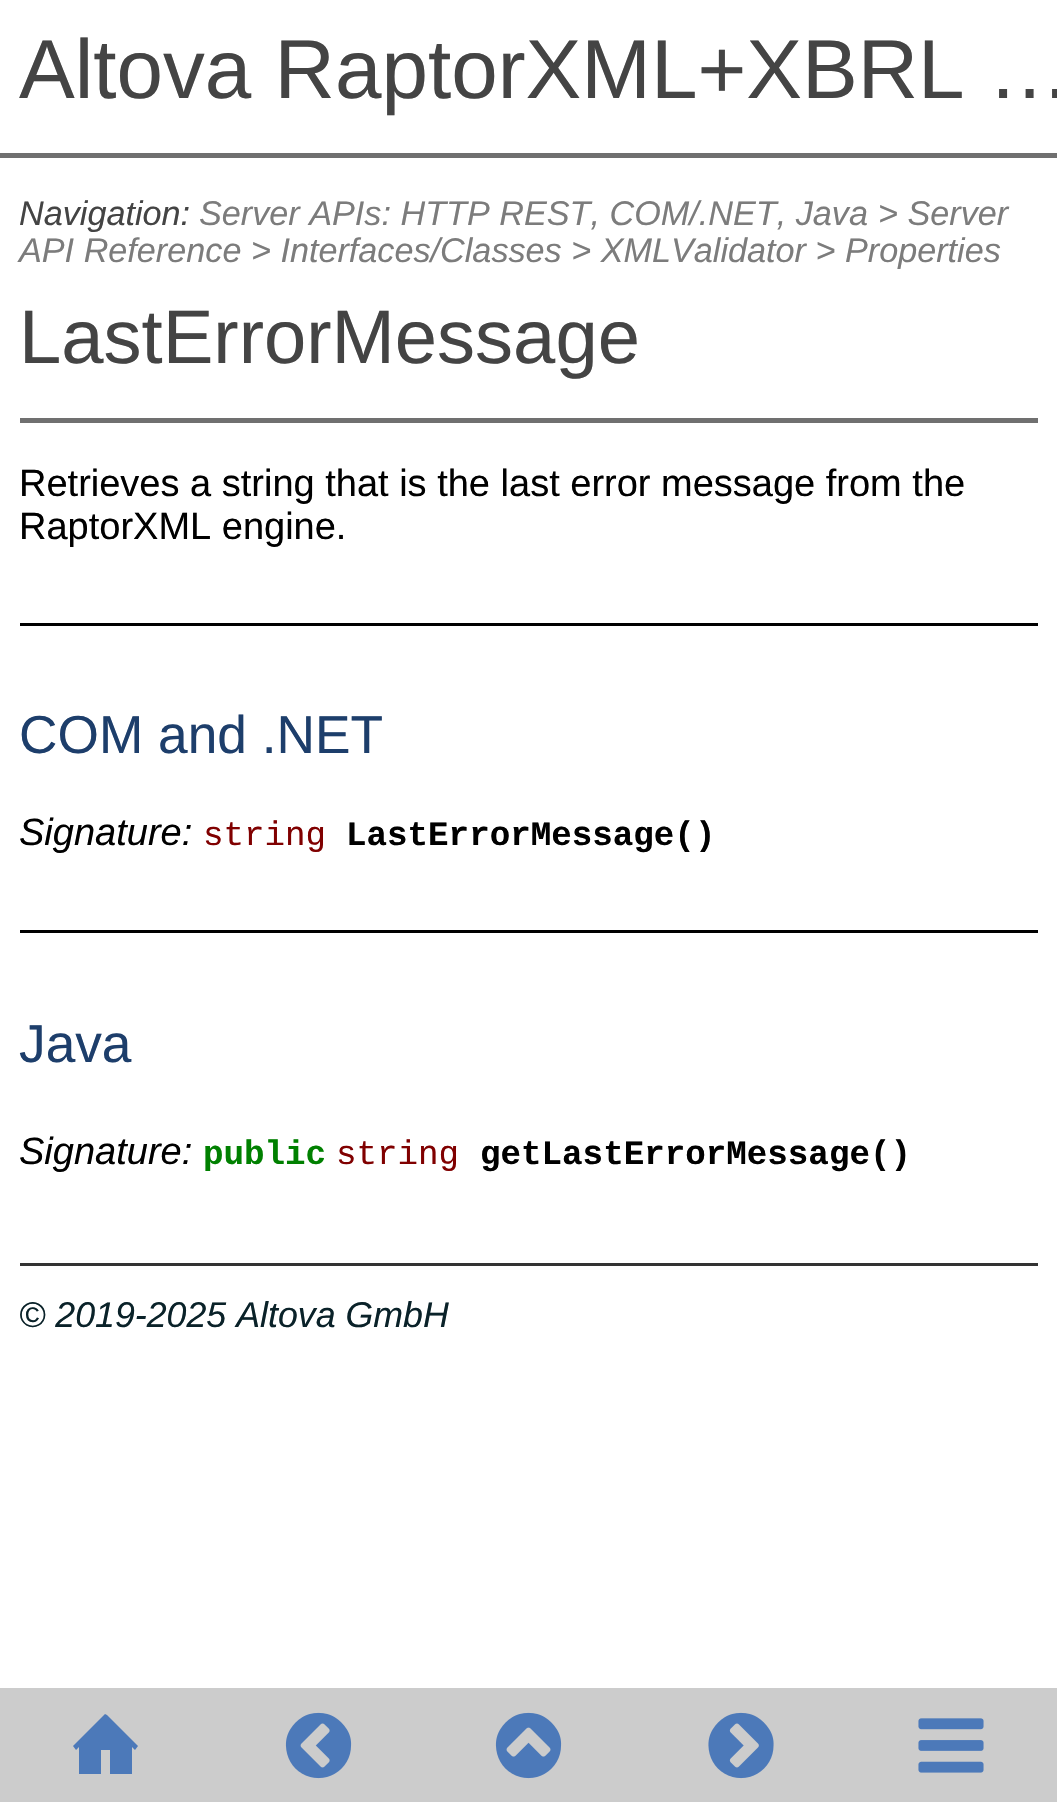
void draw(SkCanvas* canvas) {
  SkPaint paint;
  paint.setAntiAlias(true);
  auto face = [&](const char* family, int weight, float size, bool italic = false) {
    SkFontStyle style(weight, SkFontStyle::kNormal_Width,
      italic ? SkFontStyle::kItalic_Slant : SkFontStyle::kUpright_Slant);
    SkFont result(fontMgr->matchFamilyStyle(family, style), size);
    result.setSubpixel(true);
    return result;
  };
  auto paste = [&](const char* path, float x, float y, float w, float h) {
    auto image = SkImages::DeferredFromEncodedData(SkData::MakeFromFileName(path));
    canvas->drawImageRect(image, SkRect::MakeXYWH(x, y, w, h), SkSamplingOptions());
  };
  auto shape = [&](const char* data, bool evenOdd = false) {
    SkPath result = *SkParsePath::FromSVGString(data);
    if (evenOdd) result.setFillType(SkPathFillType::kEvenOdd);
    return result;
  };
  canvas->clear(0xffffffff);
  {
    const struct { float x, y, w, h; SkColor color; } items[] = {
      {0, 153, 1057, 5, 0xff707070},
      {20, 418, 1018, 5, 0xff707070},
      {20, 623, 1018, 3, 0xff000000},
      {20, 930, 1018, 3, 0xff000000},
      {20, 1263, 1018, 3, 0xff333333},
      {0, 1688, 1057, 114, 0xffcccccc},
    };
    for (auto [x, y, w, h, color] : items) {
      paint.setColor(color);
      canvas->drawRect(SkRect::MakeXYWH(x, y, w, h), paint);
    }
  }
  paint.setColor(0xff4c79b9);
  canvas->drawPath(shape("M105 1714L73 1746L76 1750L79 1747V1774H101V1750H110V1774H132V1747L135 1750L138 1746L107 1715Z"), paint);
  paste("img/1.png", 285, 1712, 67, 67);
  paste("img/2.png", 495, 1712, 67, 67);
  paste("img/3.png", 708, 1712, 66, 67);
  paste("img/4.png", 918, 1718, 66, 55);
  auto f0 = face("Liberation Sans", 400, 83.6f);
  paint.setColor(0xff444444);
  canvas->drawString("Altova RaptorXML+XBRL …", 19, 98, f0, paint);
  auto f1 = face("Liberation Sans", 400, 34.2f, true);
  canvas->drawString("Navigation:", 19, 225, f1, paint);
  paint.setColor(0xff7c7c7c);
  {
    const struct { const char* s; float x, y; } items[] = {
      {"Server APIs: HTTP REST, COM/.NET, Java", 199, 225},
      {"> Server", 878, 225},
      {"API Reference > Interfaces/Classes > XMLValidator > Properties", 19, 262},
    };
    for (auto [s, x, y] : items) {
      canvas->drawString(s, x, y, f1, paint);
    }
  }
  auto f2 = face("Liberation Sans", 400, 76);
  paint.setColor(0xff444444);
  canvas->drawString("LastErrorMessage", 19, 363, f2, paint);
  auto f3 = face("Liberation Sans", 400, 38);
  paint.setColor(0xff000000);
  canvas->drawString("Retrieves a string that is the last error message from the", 19, 496, f3, paint);
  canvas->drawString("RaptorXML engine.", 19, 539, f3, paint);
  auto f4 = face("Liberation Sans", 400, 53.25f);
  paint.setColor(0xff1d3e6b);
  canvas->drawString("COM and .NET", 19, 753, f4, paint);
  auto f5 = face("Liberation Sans", 400, 38, true);
  paint.setColor(0xff000000);
  canvas->drawString("Signature:", 19, 845, f5, paint);
  auto f6 = face("Liberation Mono", 400, 34.2f);
  paint.setColor(0xff800000);
  canvas->drawString("string", 203, 845, f6, paint);
  auto f7 = face("Liberation Mono", 700, 34.2f);
  paint.setColor(0xff000000);
  canvas->drawString("LastErrorMessage()", 346, 845, f7, paint);
  paint.setColor(0xff1d3e6b);
  canvas->drawString("Java", 19, 1062, f4, paint);
  paint.setColor(0xff000000);
  canvas->drawString("Signature:", 19, 1164, f5, paint);
  paint.setColor(0xff008000);
  canvas->drawString("public", 203, 1164, f7, paint);
  paint.setColor(0xff800000);
  canvas->drawString("string", 336, 1164, f6, paint);
  paint.setColor(0xff000000);
  canvas->drawString("getLastErrorMessage()", 480, 1164, f7, paint);
  auto f8 = face("Liberation Sans", 400, 35.75f, true);
  paint.setColor(0xff0a2229);
  canvas->drawString("© 2019-2025 Altova GmbH", 19, 1327, f8, paint);
}
